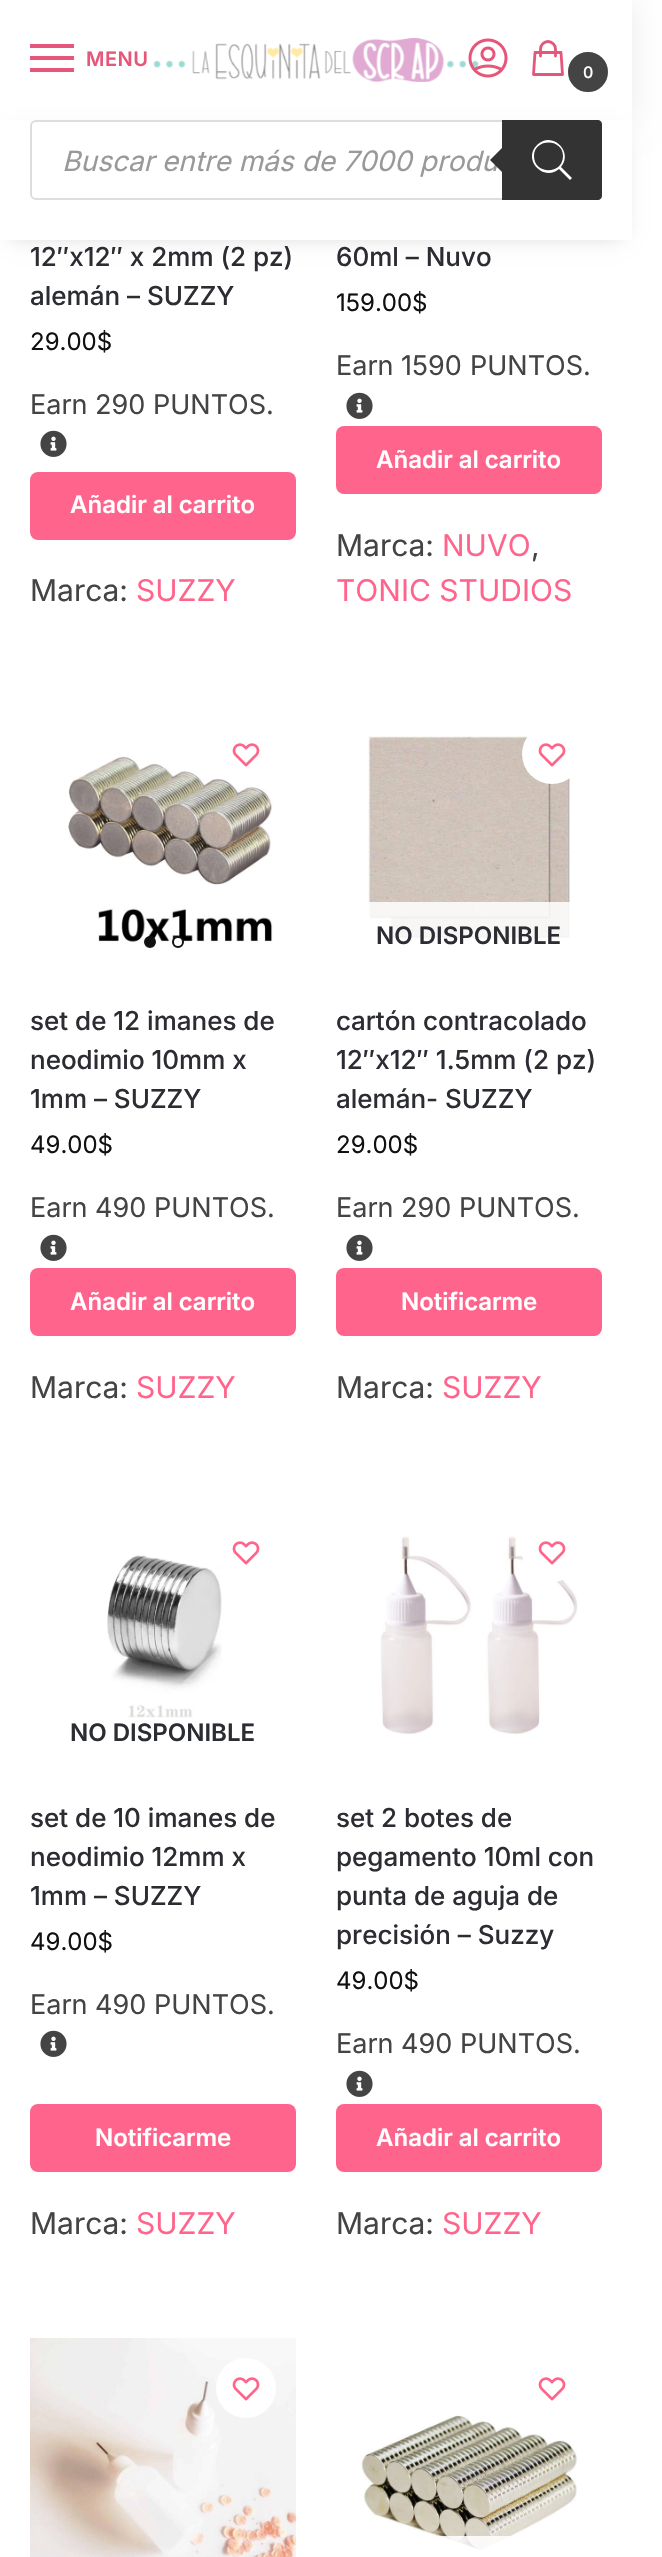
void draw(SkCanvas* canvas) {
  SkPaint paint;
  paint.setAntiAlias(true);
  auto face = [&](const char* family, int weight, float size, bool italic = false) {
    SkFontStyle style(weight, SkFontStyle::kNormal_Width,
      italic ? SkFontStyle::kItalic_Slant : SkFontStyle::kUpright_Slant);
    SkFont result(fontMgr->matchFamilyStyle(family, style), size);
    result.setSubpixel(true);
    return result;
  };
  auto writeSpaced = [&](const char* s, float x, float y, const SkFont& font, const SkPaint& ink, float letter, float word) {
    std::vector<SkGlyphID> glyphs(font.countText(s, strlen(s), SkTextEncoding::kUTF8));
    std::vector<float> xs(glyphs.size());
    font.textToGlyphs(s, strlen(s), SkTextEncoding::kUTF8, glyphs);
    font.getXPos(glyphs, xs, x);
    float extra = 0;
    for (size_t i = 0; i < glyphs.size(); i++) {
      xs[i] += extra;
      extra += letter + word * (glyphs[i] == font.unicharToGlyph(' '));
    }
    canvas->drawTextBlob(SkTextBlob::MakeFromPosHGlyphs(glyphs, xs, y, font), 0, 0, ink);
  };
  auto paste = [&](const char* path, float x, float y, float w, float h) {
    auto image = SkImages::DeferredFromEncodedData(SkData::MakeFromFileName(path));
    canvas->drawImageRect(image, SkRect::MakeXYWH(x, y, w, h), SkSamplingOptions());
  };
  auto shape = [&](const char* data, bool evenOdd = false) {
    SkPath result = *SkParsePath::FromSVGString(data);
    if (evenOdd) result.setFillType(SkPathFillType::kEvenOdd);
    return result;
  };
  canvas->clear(0xffffffff);
  paint.setColor(0x14000000);
  paint.setMaskFilter(SkMaskFilter::MakeBlur(kNormal_SkBlurStyle, 15));
  canvas->drawRect(SkRect::MakeXYWH(0, 2, 632, 120), paint);
  paint.setMaskFilter(nullptr);
  {
    const struct { float x, y, w, h; SkColor color; } items[] = {
      {0, 0, 632, 120, 0xffffffff},
      {30, 44, 44, 4, 0xffe5567a},
      {30, 56, 44, 4, 0xffe5567a},
      {30, 68, 44, 4, 0xffe5567a},
    };
    for (auto [x, y, w, h, color] : items) {
      paint.setColor(color);
      canvas->drawRect(SkRect::MakeXYWH(x, y, w, h), paint);
    }
  }
  paste("img/1.png", 153, 38, 326, 44);
  paste("img/2.png", 468, 38, 40, 40);
  paint.setStroke(true);
  paint.setStrokeWidth(2.8f);
  paint.setStrokeCap(SkPaint::kRound_Cap);
  paint.setStrokeJoin(SkPaint::kRound_Join);
  canvas->drawPath(shape("M555.5 56V49C555.5 45 552 41.5 548 41.5C544 41.5 540.5 45 540.5 49V56M535 52.5H561L562.5 74.5H533.5Z"), paint);
  paint.setStroke(false);
  paint.setColor(0xff444444);
  canvas->drawCircle(588, 72, 19, paint);
  paint.setStroke(true);
  paint.setStrokeWidth(2);
  paint.setStrokeCap(SkPaint::kButt_Cap);
  paint.setStrokeJoin(SkPaint::kMiter_Join);
  canvas->drawCircle(588, 72, 19, paint);
  paint.setStroke(false);
  paint.setColor(0x2e000000);
  paint.setMaskFilter(SkMaskFilter::MakeBlur(kNormal_SkBlurStyle, 10));
  canvas->drawRect(SkRect::MakeXYWH(10, 136, 612, 100), paint);
  paint.setMaskFilter(nullptr);
  paint.setColor(0xffffffff);
  canvas->drawRect(SkRect::MakeXYWH(0, 120, 632, 120), paint);
  paint.setStroke(true);
  paint.setColor(0xffdddddd);
  canvas->drawRoundRect(SkRect::MakeXYWH(31, 121, 570, 78), 5, 5, paint);
  paint.setStroke(false);
  paint.setColor(0xff333333);
  canvas->drawPath(shape("M502 120H598C600 120 602 122 602 124V196C602 198 600 200 598 200H502Z"), paint);
  paint.setColor(0xffffffff);
  canvas->drawPath(shape("M572 178L561 167C574 152 552 130 537 145C522 160 544 182 559 169L570 180ZM534 156C534 138 563 138 563 156C563 175 534 175 534 156Z"), paint);
  paste("img/3.png", 40, 430, 27, 27);
  paint.setColor(0xffff658c);
  canvas->drawRoundRect(SkRect::MakeXYWH(30, 472, 266, 68), 8, 8, paint);
  paste("img/3.png", 346, 392, 27, 27);
  canvas->drawRoundRect(SkRect::MakeXYWH(336, 426, 266, 68), 8, 8, paint);
  paste("img/5.png", 68, 756, 205, 186);
  paste("img/4.png", 232, 743, 28, 24);
  paint.setColor(0xff111111);
  canvas->drawCircle(150, 942, 5, paint);
  paint.setStroke(true);
  canvas->drawCircle(150, 942, 5, paint);
  paint.setStroke(false);
  paint.setColor(0xffffffff);
  canvas->drawCircle(178, 942, 5, paint);
  paint.setStroke(true);
  paint.setColor(0xff111111);
  canvas->drawCircle(178, 942, 5, paint);
  paste("img/3.png", 40, 1234, 27, 27);
  paint.setStroke(false);
  paint.setColor(0xffff658c);
  canvas->drawRoundRect(SkRect::MakeXYWH(30, 1268, 266, 68), 8, 8, paint);
  paste("img/6.png", 368, 736, 202, 203);
  paint.setColor(0xffffffff);
  canvas->drawCircle(552, 754, 30, paint);
  paste("img/4.png", 538, 743, 28, 24);
  paint.setColor(0xd9ffffff);
  canvas->drawRect(SkRect::MakeXYWH(368, 902, 202, 37), paint);
  paste("img/3.png", 346, 1234, 27, 27);
  paint.setColor(0xffff658c);
  canvas->drawRoundRect(SkRect::MakeXYWH(336, 1268, 266, 68), 8, 8, paint);
  paste("img/4.png", 232, 1541, 28, 24);
  paste("img/7.png", 107, 1555, 115, 163);
  paint.setColor(0xd9ffffff);
  canvas->drawRect(SkRect::MakeXYWH(128, 1705, 65, 13), paint);
  paste("img/3.png", 40, 2030, 27, 27);
  paint.setColor(0xffff658c);
  canvas->drawRoundRect(SkRect::MakeXYWH(30, 2104, 266, 68), 8, 8, paint);
  paste("img/8.png", 380, 1536, 198, 199);
  paint.setColor(0xffffffff);
  canvas->drawCircle(552, 1552, 30, paint);
  paste("img/4.png", 538, 1541, 28, 24);
  paste("img/3.png", 346, 2070, 27, 27);
  paint.setColor(0xffff658c);
  canvas->drawRoundRect(SkRect::MakeXYWH(336, 2104, 266, 68), 8, 8, paint);
  paste("img/9.png", 30, 2338, 266, 219);
  paint.setColor(0xffffffff);
  canvas->drawCircle(246, 2388, 30, paint);
  paste("img/4.png", 232, 2377, 28, 24);
  paste("img/4.png", 538, 2377, 28, 24);
  paste("img/10.png", 361, 2415, 216, 136);
  paint.setColor(0xd9ffffff);
  canvas->drawRect(SkRect::MakeXYWH(438, 2536, 73, 15), paint);
  auto f0 = face("Inter", 600, 20);
  paint.setColor(0xffe5567a);
  writeSpaced("MENU", 86, 66, f0, paint, 0.5f, 0);
  auto f1 = face("Inter", 500, 16);
  paint.setColor(0xffffffff);
  canvas->drawString("0", 583, 78, f1, paint);
  auto f2 = face("Inter", 400, 28, true);
  paint.setColor(0xff999999);
  canvas->drawString("Buscar entre más de 7000 produ", 62, 171, f2, paint);
  paint.setColor(0xff333333);
  canvas->drawPath(shape("M506 144V176L490 160Z"), paint);
  auto f3 = face("Inter", 500, 26);
  paint.setColor(0xff2c2d33);
  canvas->drawString("12″x12″ x 2mm (2 pz)", 30, 266, f3, paint);
  canvas->drawString("alemán – SUZZY", 30, 305, f3, paint);
  auto f4 = face("Inter", 400, 24);
  paint.setColor(0xff111111);
  canvas->drawString("29.00$", 30, 350, f4, paint);
  auto f5 = face("Inter", 400, 27);
  paint.setColor(0xff444444);
  canvas->drawString("Earn 290", 30, 414, f5, paint);
  canvas->drawString("PUNTOS.", 153, 414, f5, paint);
  auto f6 = face("Inter", 600, 24);
  paint.setColor(0xffffffff);
  canvas->drawString("Añadir al carrito", 70, 513, f6, paint);
  auto f7 = face("Inter", 400, 30);
  paint.setColor(0xff444444);
  canvas->drawString("Marca:", 30, 601, f7, paint);
  paint.setColor(0xffff658c);
  canvas->drawString("SUZZY", 136, 601, f7, paint);
  paint.setColor(0xff2c2d33);
  canvas->drawString("60ml – Nuvo", 336, 266, f3, paint);
  paint.setColor(0xff111111);
  canvas->drawString("159.00$", 336, 311, f4, paint);
  paint.setColor(0xff444444);
  canvas->drawString("Earn 1590", 336, 375, f5, paint);
  canvas->drawString("PUNTOS.", 470, 375, f5, paint);
  paint.setColor(0xffffffff);
  canvas->drawString("Añadir al carrito", 376, 468, f6, paint);
  paint.setColor(0xff444444);
  canvas->drawString("Marca:", 336, 556, f7, paint);
  paint.setColor(0xffff658c);
  canvas->drawString("NUVO", 442, 556, f7, paint);
  paint.setColor(0xff444444);
  canvas->drawString(",", 531, 556, f7, paint);
  paint.setColor(0xffff658c);
  canvas->drawString("TONIC STUDIOS", 336, 601, f7, paint);
  paint.setColor(0xff2c2d33);
  {
    const struct { const char* s; float x, y; } items[] = {
      {"set de 12 imanes de", 30, 1030},
      {"neodimio 10mm x", 30, 1069},
      {"1mm – SUZZY", 30, 1108},
    };
    for (auto [s, x, y] : items) {
      canvas->drawString(s, x, y, f3, paint);
    }
  }
  paint.setColor(0xff111111);
  canvas->drawString("49.00$", 30, 1153, f4, paint);
  paint.setColor(0xff444444);
  canvas->drawString("Earn 490", 30, 1217, f5, paint);
  canvas->drawString("PUNTOS.", 154, 1217, f5, paint);
  paint.setColor(0xffffffff);
  canvas->drawString("Añadir al carrito", 70, 1310, f6, paint);
  paint.setColor(0xff444444);
  canvas->drawString("Marca:", 30, 1398, f7, paint);
  paint.setColor(0xffff658c);
  canvas->drawString("SUZZY", 136, 1398, f7, paint);
  paint.setColor(0xff2c2d33);
  canvas->drawString("NO DISPONIBLE", 376, 944, f6, paint);
  {
    const struct { const char* s; float x, y; } items[] = {
      {"cartón contracolado", 336, 1030},
      {"12″x12″ 1.5mm (2 pz)", 336, 1069},
      {"alemán- SUZZY", 336, 1108},
    };
    for (auto [s, x, y] : items) {
      canvas->drawString(s, x, y, f3, paint);
    }
  }
  paint.setColor(0xff111111);
  canvas->drawString("29.00$", 336, 1153, f4, paint);
  paint.setColor(0xff444444);
  canvas->drawString("Earn 290", 336, 1217, f5, paint);
  canvas->drawString("PUNTOS.", 459, 1217, f5, paint);
  paint.setColor(0xffffffff);
  canvas->drawString("Notificarme", 401, 1310, f6, paint);
  paint.setColor(0xff444444);
  canvas->drawString("Marca:", 336, 1398, f7, paint);
  paint.setColor(0xffff658c);
  canvas->drawString("SUZZY", 442, 1398, f7, paint);
  paint.setColor(0xff2c2d33);
  canvas->drawString("NO DISPONIBLE", 70, 1741, f6, paint);
  {
    const struct { const char* s; float x, y; } items[] = {
      {"set de 10 imanes de", 30, 1827},
      {"neodimio 12mm x", 30, 1866},
      {"1mm – SUZZY", 30, 1905},
    };
    for (auto [s, x, y] : items) {
      canvas->drawString(s, x, y, f3, paint);
    }
  }
  paint.setColor(0xff111111);
  canvas->drawString("49.00$", 30, 1950, f4, paint);
  paint.setColor(0xff444444);
  canvas->drawString("Earn 490", 30, 2014, f5, paint);
  canvas->drawString("PUNTOS.", 154, 2014, f5, paint);
  paint.setColor(0xffffffff);
  canvas->drawString("Notificarme", 95, 2146, f6, paint);
  paint.setColor(0xff444444);
  canvas->drawString("Marca:", 30, 2234, f7, paint);
  paint.setColor(0xffff658c);
  canvas->drawString("SUZZY", 136, 2234, f7, paint);
  paint.setColor(0xff2c2d33);
  {
    const struct { const char* s; float x, y; } items[] = {
      {"set 2 botes de", 336, 1827},
      {"pegamento 10ml con", 336, 1866},
      {"punta de aguja de", 336, 1905},
      {"precisión – Suzzy", 336, 1944},
    };
    for (auto [s, x, y] : items) {
      canvas->drawString(s, x, y, f3, paint);
    }
  }
  paint.setColor(0xff111111);
  canvas->drawString("49.00$", 336, 1989, f4, paint);
  paint.setColor(0xff444444);
  canvas->drawString("Earn 490", 336, 2053, f5, paint);
  canvas->drawString("PUNTOS.", 460, 2053, f5, paint);
  paint.setColor(0xffffffff);
  canvas->drawString("Añadir al carrito", 376, 2146, f6, paint);
  paint.setColor(0xff444444);
  canvas->drawString("Marca:", 336, 2234, f7, paint);
  paint.setColor(0xffff658c);
  canvas->drawString("SUZZY", 442, 2234, f7, paint);
}
